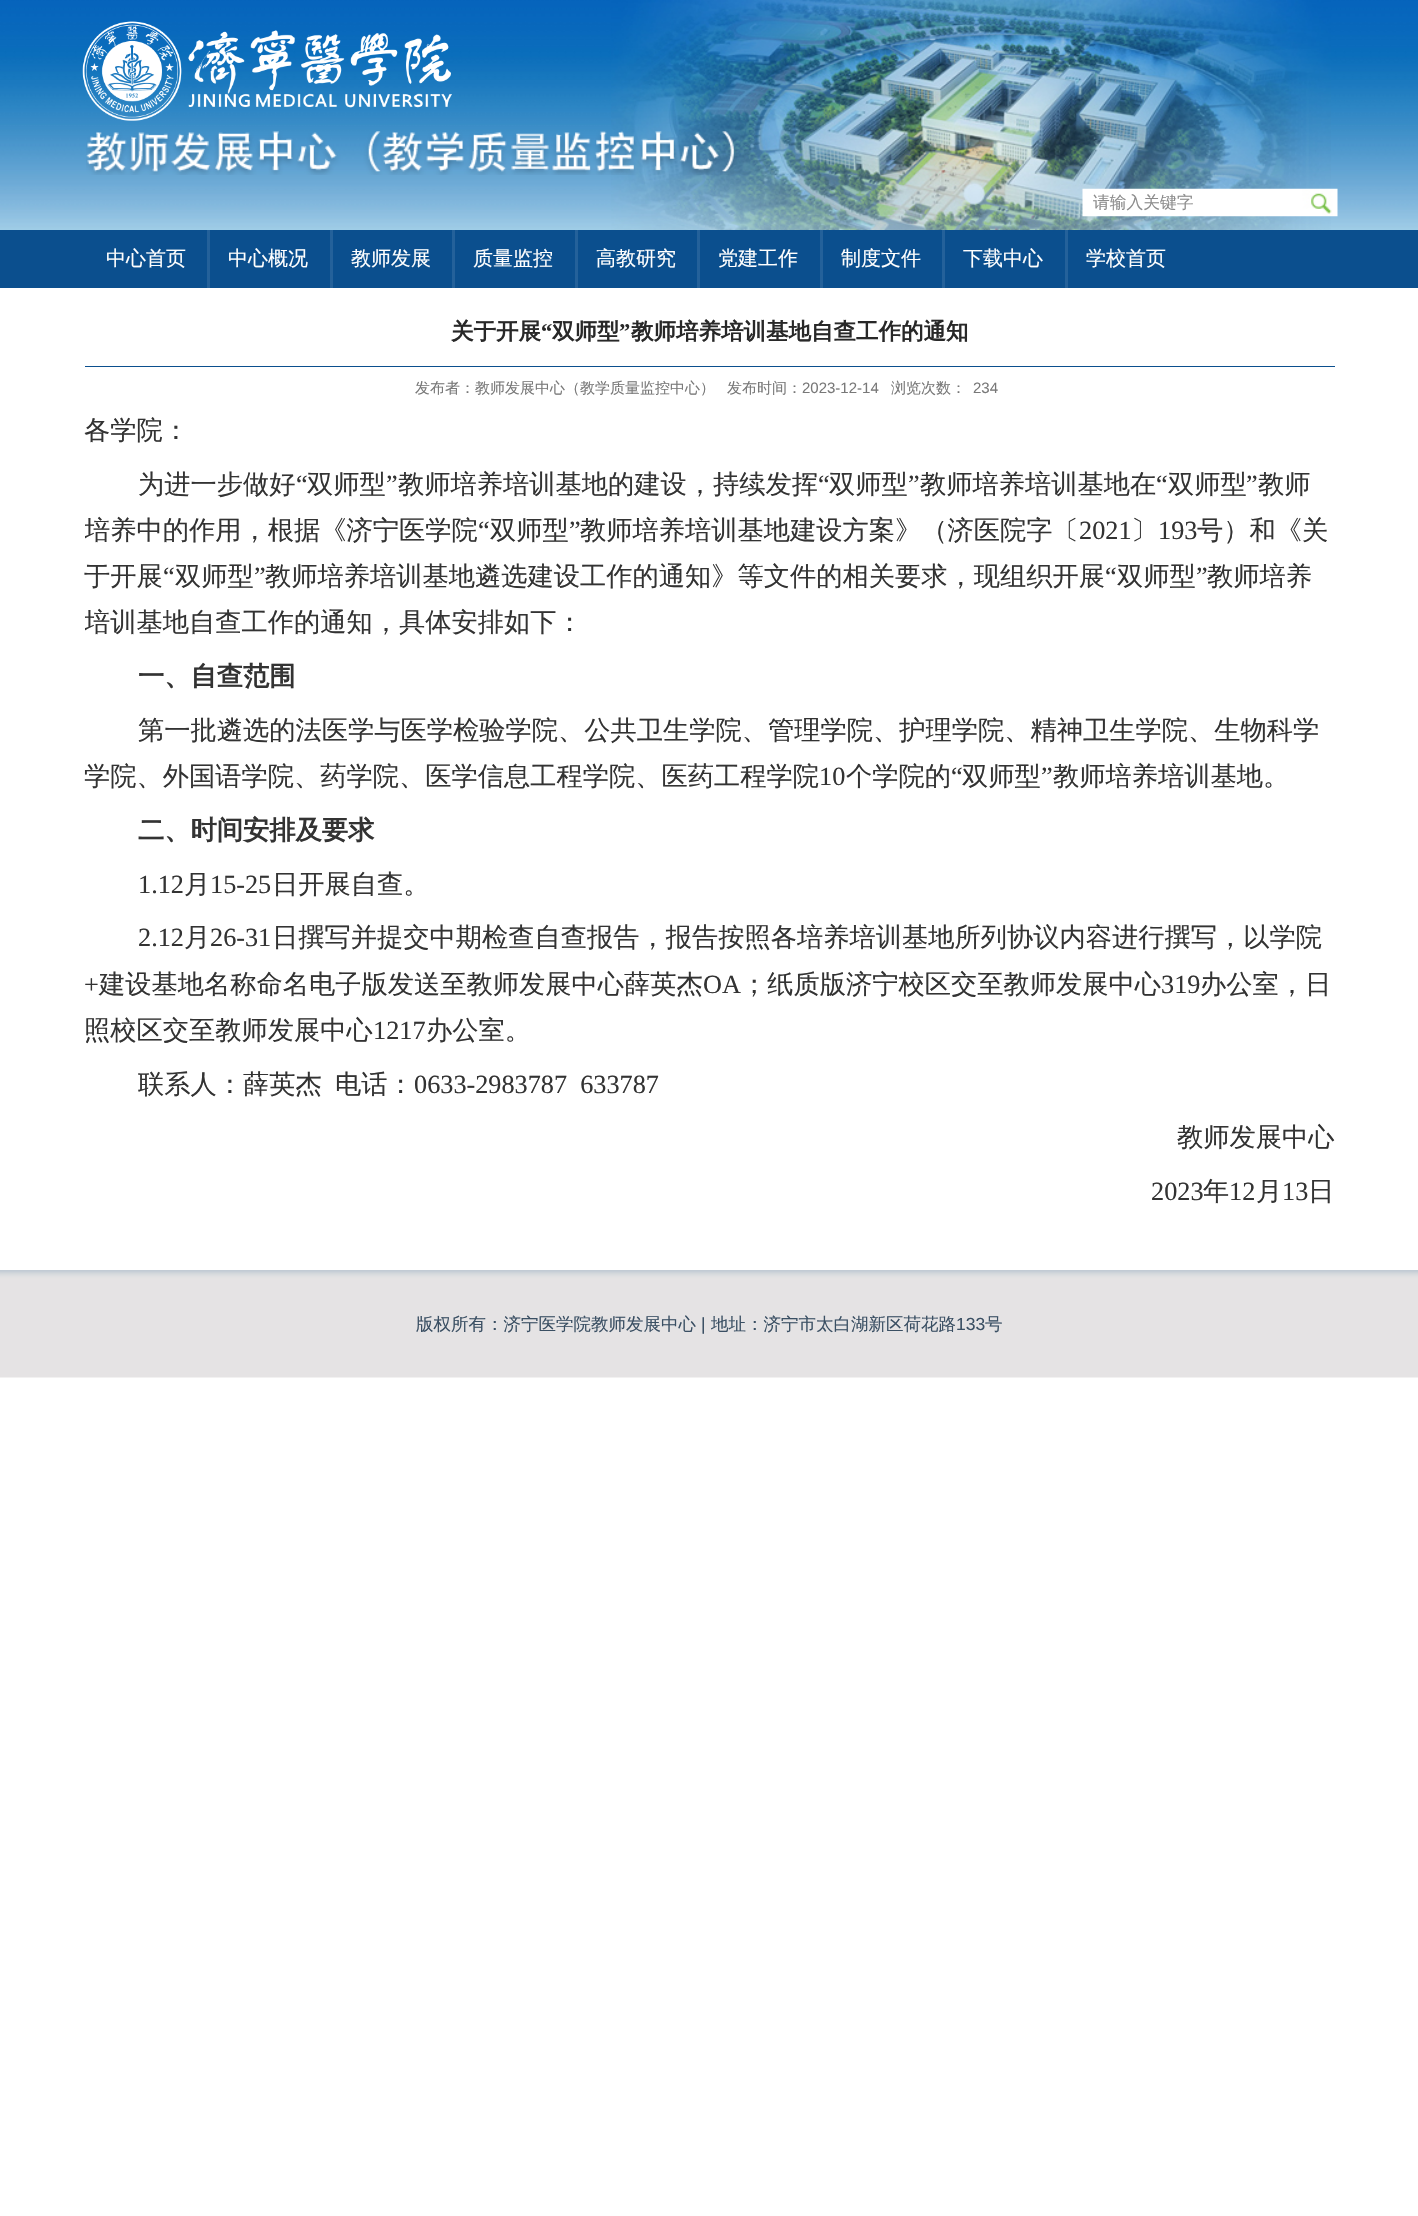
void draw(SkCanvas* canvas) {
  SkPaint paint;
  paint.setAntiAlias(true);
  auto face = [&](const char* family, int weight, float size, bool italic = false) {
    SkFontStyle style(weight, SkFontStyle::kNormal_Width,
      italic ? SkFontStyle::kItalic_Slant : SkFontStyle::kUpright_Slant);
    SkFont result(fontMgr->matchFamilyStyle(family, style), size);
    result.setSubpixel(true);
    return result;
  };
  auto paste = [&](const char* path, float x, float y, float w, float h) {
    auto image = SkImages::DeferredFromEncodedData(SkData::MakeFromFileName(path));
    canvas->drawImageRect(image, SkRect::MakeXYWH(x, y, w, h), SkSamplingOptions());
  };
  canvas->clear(0xffffffff);
  paste("img/1.png", 0, 0, 1418, 230);
  paste("img/2.png", 611, 0, 720, 230);
  paste("img/3.png", 82, 21, 370, 100);
  paste("img/4.png", 86, 131, 651, 44);
  paste("img/5.png", 1082, 188, 256, 29);
  {
    const struct { float x, y, w, h; SkColor color; } items[] = {
      {0, 230, 1418, 58, 0xff0b4f8e},
      {207, 230, 3, 58, 0xff24619a},
      {330, 230, 3, 58, 0xff24619a},
      {452, 230, 3, 58, 0xff24619a},
      {575, 230, 3, 58, 0xff24619a},
      {697, 230, 3, 58, 0xff24619a},
      {820, 230, 3, 58, 0xff24619a},
      {942, 230, 3, 58, 0xff24619a},
      {1065, 230, 3, 58, 0xff24619a},
      {85, 366, 1250, 1, 0xff0b4f8e},
    };
    for (auto [x, y, w, h, color] : items) {
      paint.setColor(color);
      canvas->drawRect(SkRect::MakeXYWH(x, y, w, h), paint);
    }
  }
  paste("img/6.png", 0, 1270, 1418, 108);
  auto f0 = face("WenQuanYi Zen Hei", 500, 16.75f);
  paint.setColor(0xff8c8c8c);
  canvas->drawString("请输入关键字", 1093, 208, f0, paint);
  auto f1 = face("WenQuanYi Zen Hei", 500, 20);
  paint.setColor(0xffffffff);
  {
    const struct { const char* s; float x, y; } items[] = {
      {"中心首页", 106, 265},
      {"中心概况", 228, 265},
      {"教师发展", 351, 265},
      {"质量监控", 473, 265},
      {"高教研究", 596, 265},
      {"党建工作", 718, 265},
      {"制度文件", 841, 265},
      {"下载中心", 963, 265},
      {"学校首页", 1086, 265},
    };
    for (auto [s, x, y] : items) {
      canvas->drawString(s, x, y, f1, paint);
    }
  }
  auto f2 = face("WenQuanYi Zen Hei", 700, 22.5f);
  paint.setColor(0xff282828);
  canvas->drawString("关于开展", 451, 339, f2, paint);
  auto f3 = face("Liberation Serif", 700, 22.5f);
  canvas->drawString("“", 541, 339, f3, paint);
  canvas->drawString("双师型", 552, 339, f2, paint);
  canvas->drawString("”", 619, 339, f3, paint);
  canvas->drawString("教师培养培训基地自查工作的通知", 631, 339, f2, paint);
  auto f4 = face("WenQuanYi Zen Hei", 500, 15);
  paint.setColor(0xff787878);
  canvas->drawString("发布者：教师发展中心（教学质量监控中心）", 415, 393, f4, paint);
  canvas->drawString("发布时间：", 727, 393, f4, paint);
  auto f5 = face("Liberation Sans", 400, 15);
  canvas->drawString("2023-12-14", 802, 393, f5, paint);
  canvas->drawString("浏览次数：", 891, 393, f4, paint);
  canvas->drawString("234", 973, 393, f5, paint);
  auto f6 = face("WenQuanYi Zen Hei", 500, 26.25f);
  paint.setColor(0xff333333);
  canvas->drawString("各学院：", 84, 439, f6, paint);
  canvas->drawString("为进一步做好", 138, 493, f6, paint);
  auto f7 = face("Liberation Serif", 400, 26.25f);
  canvas->drawString("“", 296, 493, f7, paint);
  canvas->drawString("双师型", 307, 493, f6, paint);
  canvas->drawString("”", 386, 493, f7, paint);
  canvas->drawString("教师培养培训基地的建设，持续发挥", 398, 493, f6, paint);
  canvas->drawString("“", 818, 493, f7, paint);
  canvas->drawString("双师型", 829, 493, f6, paint);
  canvas->drawString("”", 908, 493, f7, paint);
  canvas->drawString("教师培养培训基地在", 920, 493, f6, paint);
  canvas->drawString("“", 1156, 493, f7, paint);
  canvas->drawString("双师型", 1168, 493, f6, paint);
  canvas->drawString("”", 1246, 493, f7, paint);
  canvas->drawString("教师", 1258, 493, f6, paint);
  canvas->save();
  canvas->clipRect(SkRect::MakeXYWH(85, 408, 1250, 850));
  canvas->drawString("培养中的作用，根据《济宁医学院", 84, 539, f6, paint);
  canvas->restore();
  canvas->drawString("“", 478, 539, f7, paint);
  canvas->drawString("双师型", 490, 539, f6, paint);
  canvas->drawString("”", 569, 539, f7, paint);
  canvas->drawString("教师培养培训基地建设方案》（济医院字〔", 580, 539, f6, paint);
  canvas->drawString("2021", 1079, 539, f7, paint);
  canvas->drawString("〕", 1131, 539, f6, paint);
  canvas->drawString("193", 1158, 539, f7, paint);
  canvas->drawString("号）和《关", 1197, 539, f6, paint);
  canvas->drawString("于开展", 84, 585, f6, paint);
  canvas->drawString("“", 163, 585, f7, paint);
  canvas->drawString("双师型", 175, 585, f6, paint);
  canvas->drawString("”", 254, 585, f7, paint);
  canvas->drawString("教师培养培训基地遴选建设工作的通知》等文件的相关要求，现组织开展", 265, 585, f6, paint);
  canvas->drawString("“", 1105, 585, f7, paint);
  canvas->drawString("双师型", 1117, 585, f6, paint);
  canvas->drawString("”", 1196, 585, f7, paint);
  canvas->drawString("教师培养", 1207, 585, f6, paint);
  canvas->save();
  canvas->clipRect(SkRect::MakeXYWH(85, 408, 1250, 850));
  canvas->drawString("培训基地自查工作的通知，具体安排如下：", 84, 631, f6, paint);
  canvas->restore();
  auto f8 = face("WenQuanYi Zen Hei", 700, 26.25f);
  canvas->drawString("一、自查范围", 138, 685, f8, paint);
  canvas->drawString("第一批遴选的法医学与医学检验学院、公共卫生学院、管理学院、护理学院、精神卫生学院、生物科学", 138, 739, f6, paint);
  canvas->drawString("学院、外国语学院、药学院、医学信息工程学院、医药工程学院", 84, 785, f6, paint);
  canvas->drawString("10", 819, 785, f7, paint);
  canvas->drawString("个学院的", 846, 785, f6, paint);
  canvas->drawString("“", 951, 785, f7, paint);
  canvas->drawString("双师型", 962, 785, f6, paint);
  canvas->drawString("”", 1041, 785, f7, paint);
  canvas->drawString("教师培养培训基地。", 1053, 785, f6, paint);
  canvas->drawString("二、时间安排及要求", 138, 839, f8, paint);
  canvas->drawString("1.12", 138, 893, f7, paint);
  canvas->drawString("月", 184, 893, f6, paint);
  canvas->drawString("15-25", 210, 893, f7, paint);
  canvas->drawString("日开展自查。", 272, 893, f6, paint);
  canvas->drawString("2.12", 138, 946, f7, paint);
  canvas->drawString("月", 184, 946, f6, paint);
  canvas->drawString("26-31", 210, 946, f7, paint);
  canvas->drawString("日撰写并提交中期检查自查报告，报告按照各培养培训基地所列协议内容进行撰写，以学院", 272, 946, f6, paint);
  canvas->drawString("+", 84, 993, f7, paint);
  canvas->drawString("建设基地名称命名电子版发送至教师发展中心薛英杰", 99, 993, f6, paint);
  canvas->drawString("OA", 703, 993, f7, paint);
  canvas->drawString("；纸质版济宁校区交至教师发展中心", 741, 993, f6, paint);
  canvas->drawString("319", 1161, 993, f7, paint);
  canvas->drawString("办公室，日", 1200, 993, f6, paint);
  canvas->drawString("照校区交至教师发展中心", 84, 1039, f6, paint);
  canvas->drawString("1217", 373, 1039, f7, paint);
  {
    const struct { const char* s; float x, y; } items[] = {
      {"办公室。", 426, 1039},
      {"联系人：薛英杰", 138, 1093},
      {"电话：", 335, 1093},
    };
    for (auto [s, x, y] : items) {
      canvas->drawString(s, x, y, f6, paint);
    }
  }
  canvas->drawString("0633-2983787  633787", 414, 1093, f7, paint);
  canvas->drawString("教师发展中心", 1177, 1146, f6, paint);
  canvas->drawString("2023", 1151, 1200, f7, paint);
  canvas->drawString("年", 1203, 1200, f6, paint);
  canvas->drawString("12", 1229, 1200, f7, paint);
  canvas->drawString("月", 1256, 1200, f6, paint);
  canvas->drawString("13", 1282, 1200, f7, paint);
  canvas->drawString("日", 1308, 1200, f6, paint);
  auto f9 = face("WenQuanYi Zen Hei", 500, 17.5f);
  paint.setColor(0xff3a4f63);
  canvas->drawString("版权所有：济宁医学院教师发展中心", 416, 1330, f9, paint);
  auto f10 = face("Liberation Sans", 400, 17.5f);
  canvas->drawString("|", 701, 1330, f10, paint);
  canvas->drawString("地址：济宁市太白湖新区荷花路", 711, 1330, f9, paint);
  canvas->drawString("133", 956, 1330, f10, paint);
  canvas->drawString("号", 985, 1330, f9, paint);
}
